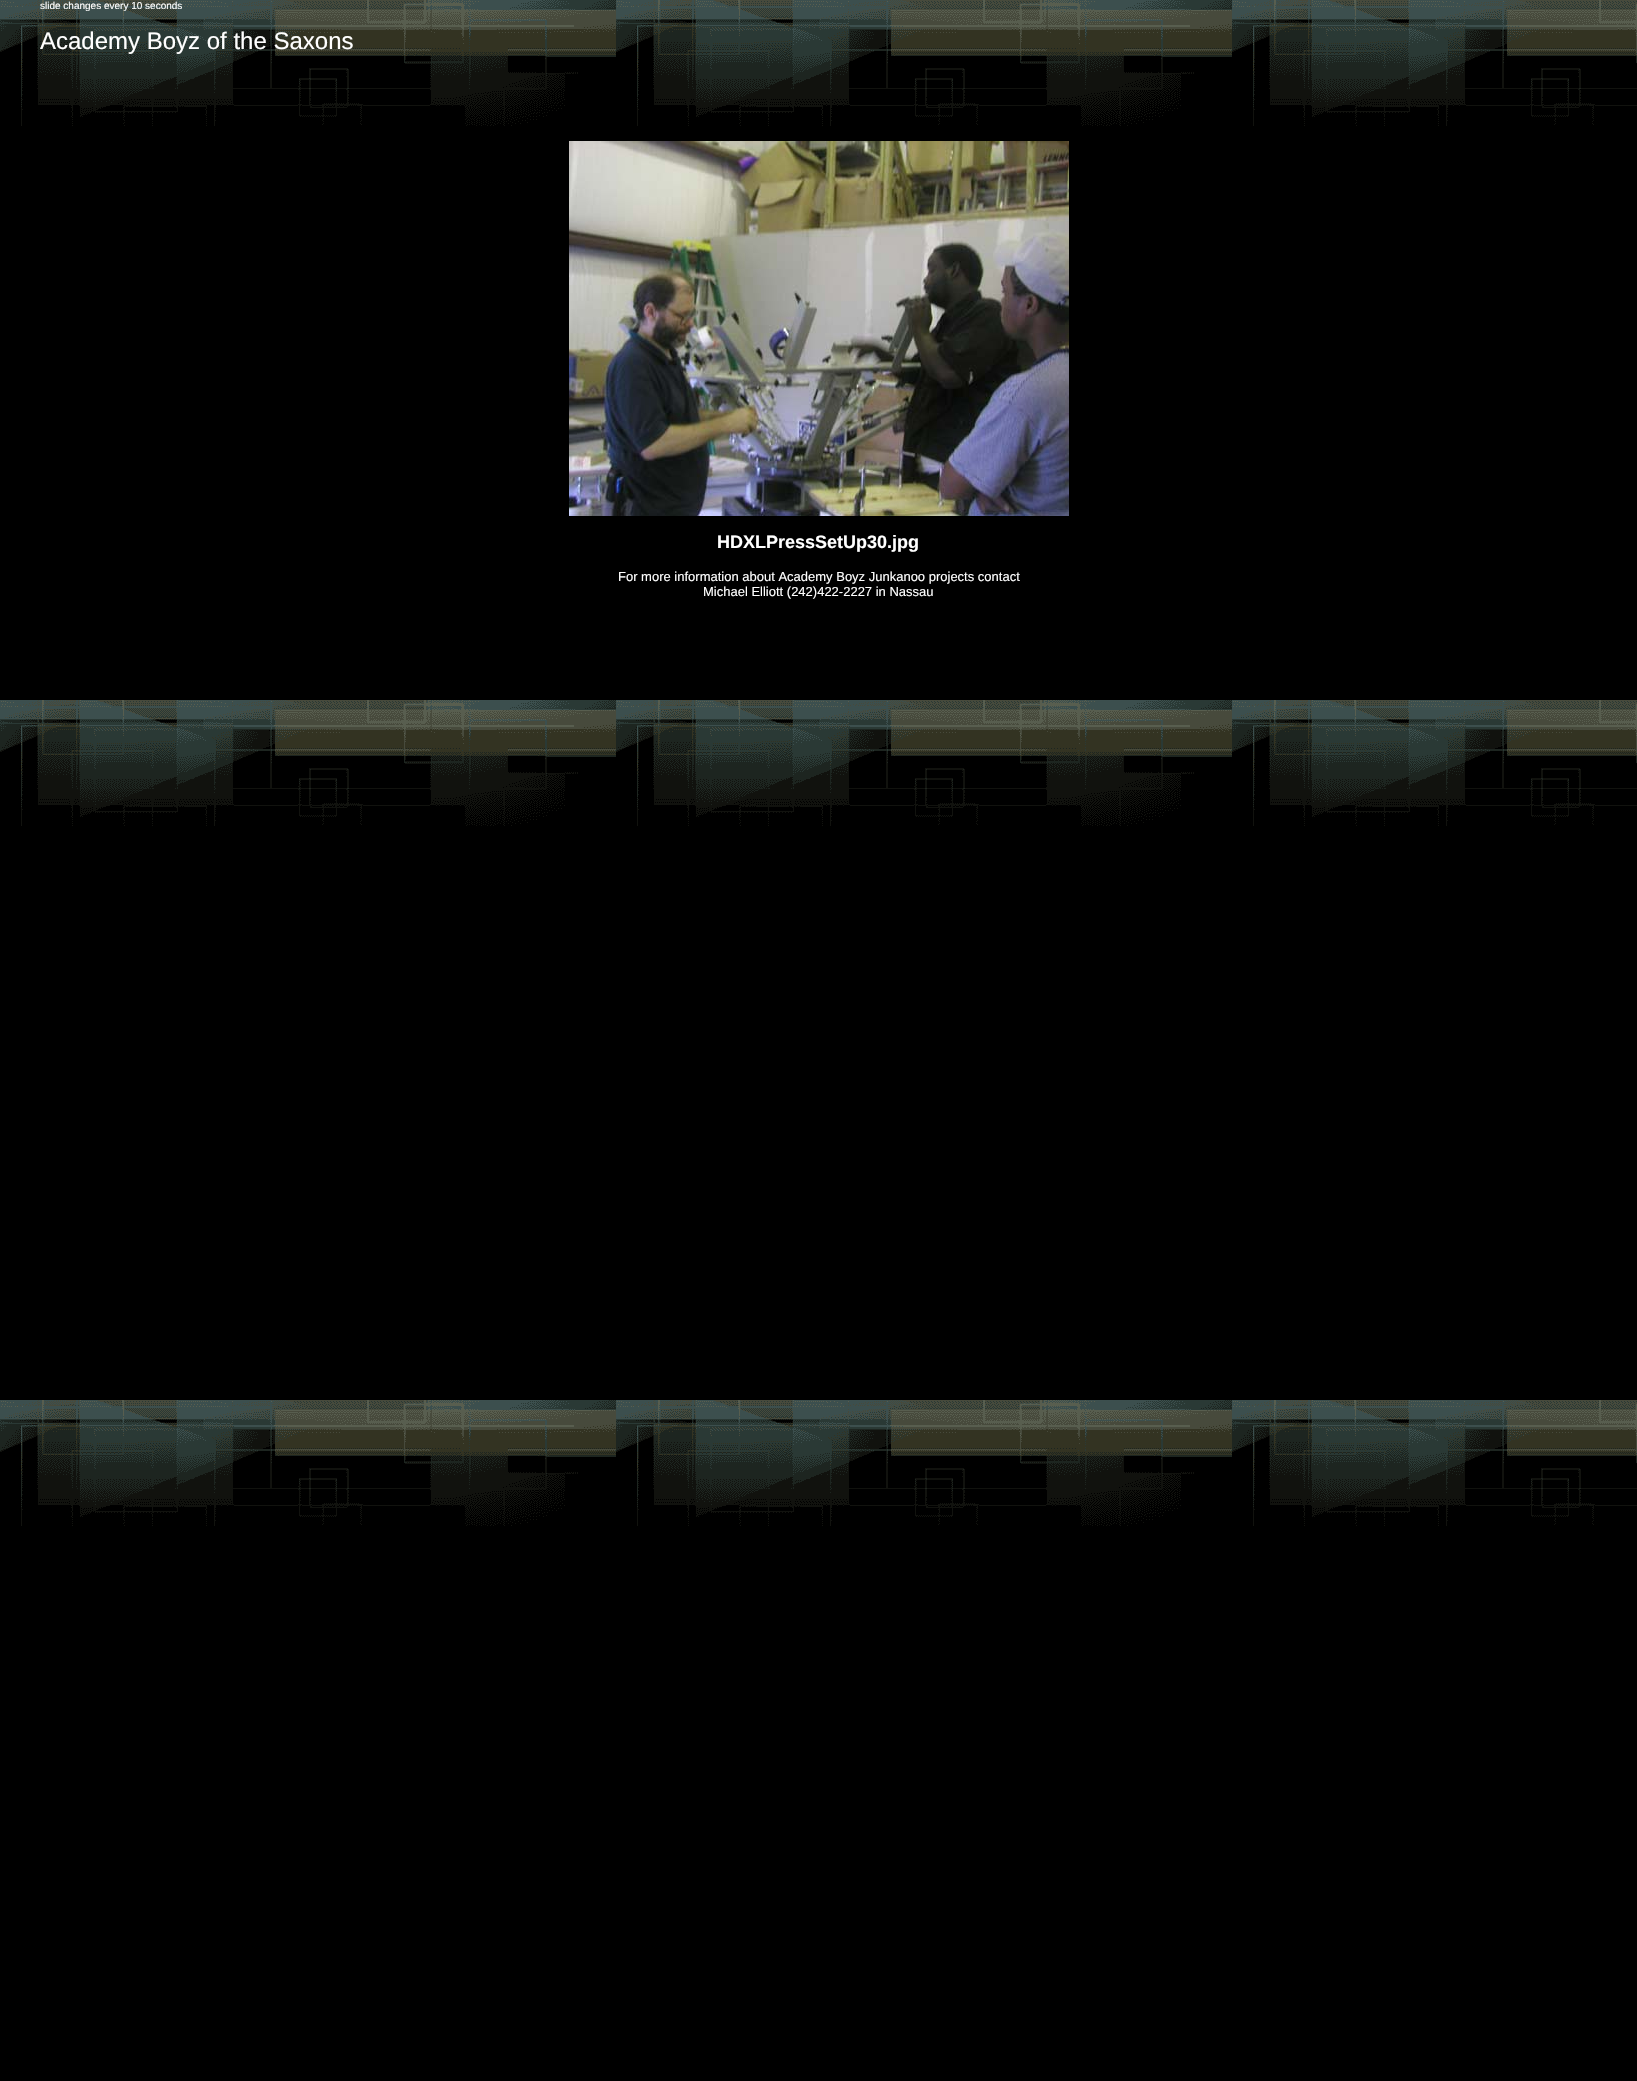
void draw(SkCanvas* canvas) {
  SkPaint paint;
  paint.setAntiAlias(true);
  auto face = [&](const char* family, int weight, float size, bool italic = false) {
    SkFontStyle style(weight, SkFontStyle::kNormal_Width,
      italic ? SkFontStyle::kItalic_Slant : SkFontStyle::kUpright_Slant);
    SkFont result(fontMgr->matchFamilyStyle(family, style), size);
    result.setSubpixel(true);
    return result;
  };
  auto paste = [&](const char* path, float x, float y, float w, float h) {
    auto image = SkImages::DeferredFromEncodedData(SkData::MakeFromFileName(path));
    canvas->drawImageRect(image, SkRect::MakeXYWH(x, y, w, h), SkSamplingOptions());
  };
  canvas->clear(0xff000000);
  paste("img/1.png", 0, 0, 1637, 1526);
  paste("img/2.png", 569, 141, 500, 375);
  auto f0 = face("Liberation Sans", 400, 10);
  paint.setColor(0xffffffff);
  canvas->drawString("slide changes every 10 seconds", 40, 9, f0, paint);
  auto f1 = face("Liberation Sans", 400, 24);
  canvas->drawString("Academy Boyz of the Saxons", 40, 49, f1, paint);
  auto f2 = face("Liberation Sans", 700, 18);
  canvas->drawString("HDXLPressSetUp30.jpg", 717, 548, f2, paint);
  auto f3 = face("Liberation Sans", 400, 13);
  canvas->drawString("For more information about Academy Boyz Junkanoo projects contact", 618, 581, f3, paint);
  canvas->drawString("Michael Elliott (242)422-2227 in Nassau", 703, 596, f3, paint);
}
